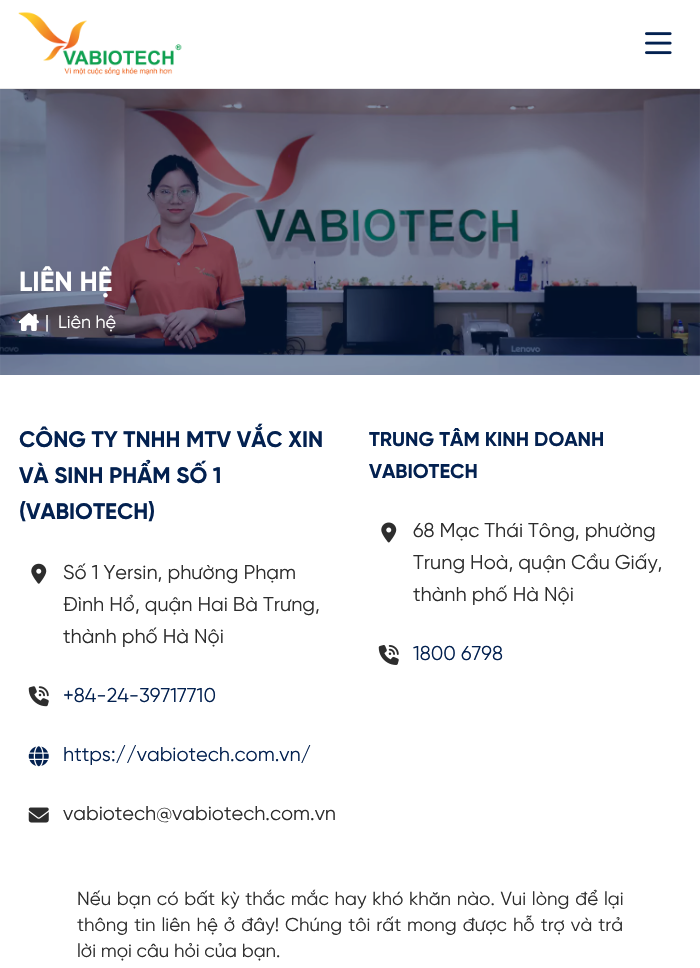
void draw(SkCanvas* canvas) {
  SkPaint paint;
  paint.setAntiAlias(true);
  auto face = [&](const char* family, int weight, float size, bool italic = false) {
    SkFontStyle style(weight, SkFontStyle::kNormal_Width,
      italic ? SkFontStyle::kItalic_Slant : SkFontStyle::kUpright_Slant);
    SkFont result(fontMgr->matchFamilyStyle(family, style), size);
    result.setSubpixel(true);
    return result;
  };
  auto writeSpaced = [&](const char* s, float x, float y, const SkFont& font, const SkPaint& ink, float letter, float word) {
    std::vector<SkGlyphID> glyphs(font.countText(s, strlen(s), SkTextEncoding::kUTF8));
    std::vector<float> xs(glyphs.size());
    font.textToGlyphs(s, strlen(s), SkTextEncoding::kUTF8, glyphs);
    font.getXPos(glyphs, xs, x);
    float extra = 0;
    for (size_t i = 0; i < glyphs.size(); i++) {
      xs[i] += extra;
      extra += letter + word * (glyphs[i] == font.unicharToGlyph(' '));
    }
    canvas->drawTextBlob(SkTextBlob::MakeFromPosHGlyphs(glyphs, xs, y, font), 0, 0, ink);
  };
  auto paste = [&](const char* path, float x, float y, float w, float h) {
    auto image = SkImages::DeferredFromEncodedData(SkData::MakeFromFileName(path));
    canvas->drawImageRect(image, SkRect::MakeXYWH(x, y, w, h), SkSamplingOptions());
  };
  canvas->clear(0xffffffff);
  paint.setColor(0xffe6e6e6);
  canvas->drawRect(SkRect::MakeXYWH(0, 88, 700, 1), paint);
  paste("img/1.png", 18, 12, 164, 63);
  paste("img/2.png", 645, 32, 27, 23);
  paste("img/3.png", 0, 89, 700, 286);
  paste("img/4.png", 18, 313, 21, 18);
  paste("img/5.png", 31, 563, 16, 21);
  paste("img/6.png", 28, 686, 21, 21);
  paste("img/7.png", 28, 746, 21, 21);
  paste("img/8.png", 28, 807, 21, 16);
  paste("img/9.png", 381, 522, 16, 21);
  paste("img/10.png", 378, 645, 21, 20);
  auto f0 = face("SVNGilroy", 700, 27.5f);
  paint.setColor(0xffffffff);
  canvas->drawString("LIÊN HỆ", 19, 291, f0, paint);
  auto f1 = face("SVNGilroy", 400, 18);
  canvas->drawString("|", 45, 328, f1, paint);
  canvas->drawString("Liên hệ", 58, 328, f1, paint);
  auto f2 = face("SVNGilroy", 700, 22.5f);
  paint.setColor(0xff032150);
  {
    const struct { const char* s; float x, y; } items[] = {
      {"CÔNG TY TNHH MTV VẮC XIN", 19, 447},
      {"VÀ SINH PHẨM SỐ 1", 19, 483},
      {"(VABIOTECH)", 19, 519},
    };
    for (auto [s, x, y] : items) {
      canvas->drawString(s, x, y, f2, paint);
    }
  }
  auto f3 = face("SVNGilroy", 400, 20);
  paint.setColor(0xff2d2d2d);
  {
    const struct { const char* s; float x, y; } items[] = {
      {"Số 1 Yersin, phường Phạm", 63, 579},
      {"Đình Hổ, quận Hai Bà Trưng,", 63, 611},
      {"thành phố Hà Nội", 63, 643},
    };
    for (auto [s, x, y] : items) {
      canvas->drawString(s, x, y, f3, paint);
    }
  }
  paint.setColor(0xff032150);
  canvas->drawString("+84-24-39717710", 63, 702, f3, paint);
  canvas->drawString("https://vabiotech.com.vn/", 63, 761, f3, paint);
  paint.setColor(0xff2d2d2d);
  canvas->drawString("vabiotech@vabiotech.com.vn", 63, 820, f3, paint);
  auto f4 = face("SVNGilroy", 700, 20);
  paint.setColor(0xff032150);
  canvas->drawString("TRUNG TÂM KINH DOANH", 369, 446, f4, paint);
  canvas->drawString("VABIOTECH", 369, 478, f4, paint);
  paint.setColor(0xff2d2d2d);
  {
    const struct { const char* s; float x, y; } items[] = {
      {"68 Mạc Thái Tông, phường", 413, 537},
      {"Trung Hoà, quận Cầu Giấy,", 413, 569},
      {"thành phố Hà Nội", 413, 601},
    };
    for (auto [s, x, y] : items) {
      canvas->drawString(s, x, y, f3, paint);
    }
  }
  paint.setColor(0xff032150);
  canvas->drawString("1800 6798", 413, 660, f3, paint);
  auto f5 = face("SVNGilroy", 400, 18.75f);
  paint.setColor(0xff2d2d2d);
  writeSpaced("Nếu bạn có bất kỳ thắc mắc hay khó khăn nào. Vui lòng để lại", 77, 905, f5, paint, 0, 1);
  writeSpaced("thông tin liên hệ ở đây! Chúng tôi rất mong được hỗ trợ và trả", 77, 931, f5, paint, 0, 1.25f);
  canvas->drawString("lời mọi câu hỏi của bạn.", 77, 957, f5, paint);
}
